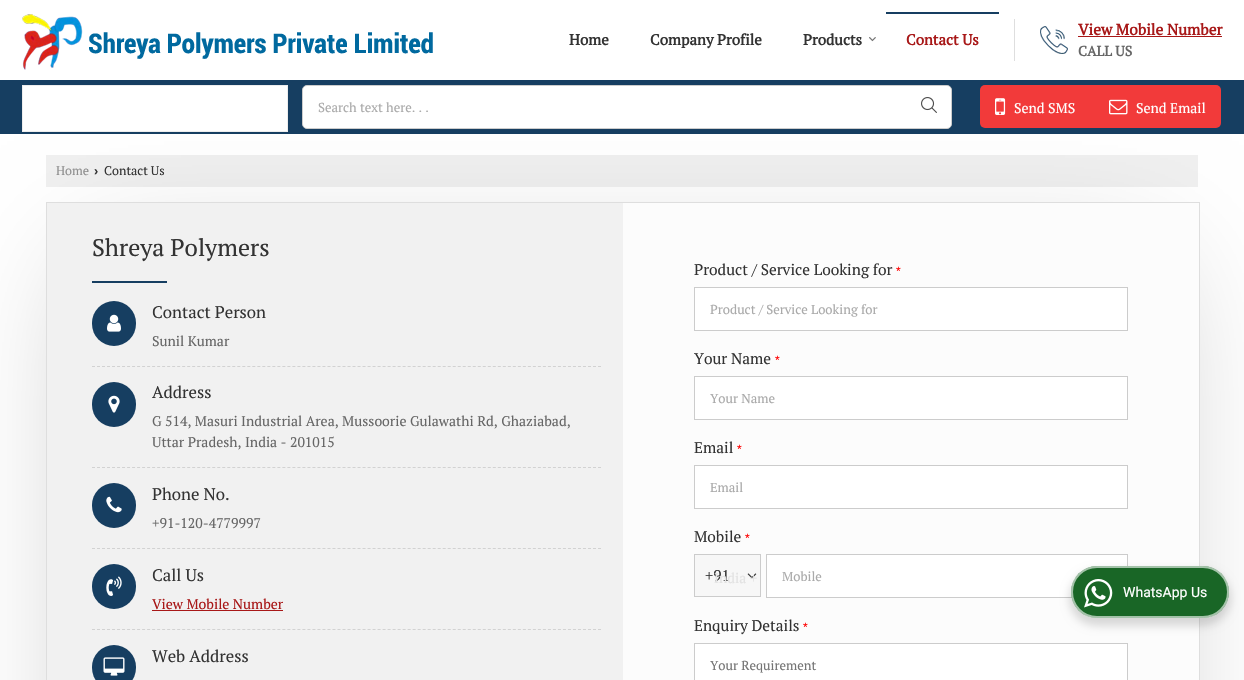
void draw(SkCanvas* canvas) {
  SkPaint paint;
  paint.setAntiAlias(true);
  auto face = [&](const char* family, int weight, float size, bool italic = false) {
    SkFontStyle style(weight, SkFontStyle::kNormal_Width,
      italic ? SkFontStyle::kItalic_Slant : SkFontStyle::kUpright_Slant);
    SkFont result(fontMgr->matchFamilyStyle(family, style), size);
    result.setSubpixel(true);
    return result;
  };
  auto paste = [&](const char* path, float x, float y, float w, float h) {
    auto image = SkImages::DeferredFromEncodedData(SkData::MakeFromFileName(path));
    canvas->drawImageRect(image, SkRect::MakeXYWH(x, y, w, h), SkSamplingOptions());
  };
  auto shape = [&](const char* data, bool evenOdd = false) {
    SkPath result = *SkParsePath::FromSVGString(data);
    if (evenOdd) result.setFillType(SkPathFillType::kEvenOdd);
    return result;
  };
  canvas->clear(0xffffffff);
  paste("img/1.png", 22, 14, 411, 56);
  paste("img/2.png", 869, 37, 7, 5);
  paint.setColor(0xff163e61);
  canvas->drawRect(SkRect::MakeXYWH(886, 12, 113, 2), paint);
  paint.setColor(0xffdedede);
  canvas->drawRect(SkRect::MakeXYWH(1014, 19, 1, 42), paint);
  paste("img/3.png", 1040, 26, 28, 28);
  paint.setColor(0xffa81818);
  canvas->drawRect(SkRect::MakeXYWH(1078, 36, 144, 1), paint);
  paint.setColor(0xff163e61);
  canvas->drawRect(SkRect::MakeXYWH(0, 80, 1244, 54), paint);
  paint.setColor(0x3d000000);
  paint.setMaskFilter(SkMaskFilter::MakeBlur(kNormal_SkBlurStyle, 60));
  canvas->drawRect(SkRect::MakeXYWH(86, 266, 1074, 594), paint);
  paint.setMaskFilter(nullptr);
  paint.setColor(0xffffffff);
  canvas->drawRect(SkRect::MakeXYWH(22.5f, 85.5f, 265, 46), paint);
  paint.setStroke(true);
  paint.setStrokeWidth(1);
  paint.setColor(0xffededed);
  canvas->drawRect(SkRect::MakeXYWH(22.5f, 85.5f, 265, 46), paint);
  paint.setStroke(false);
  paint.setColor(0xffffffff);
  canvas->drawRoundRect(SkRect::MakeXYWH(302.5f, 85.5f, 649, 43), 4.5f, 4.5f, paint);
  paint.setStroke(true);
  paint.setColor(0xffcccccc);
  canvas->drawRoundRect(SkRect::MakeXYWH(302.5f, 85.5f, 649, 43), 4.5f, 4.5f, paint);
  paste("img/4.png", 921, 97, 16, 16);
  paint.setStroke(false);
  paint.setColor(0xfff23a3a);
  canvas->drawRoundRect(SkRect::MakeXYWH(980, 85, 241, 43), 5, 5, paint);
  paste("img/5.png", 995, 98, 11, 17);
  paste("img/6.png", 1109, 99, 19, 16);
  paint.setColor(0x0f000000);
  canvas->drawRect(SkRect::MakeXYWH(46, 155, 1152, 32), paint);
  paint.setStroke(true);
  paint.setColor(0xffdedede);
  canvas->drawRect(SkRect::MakeXYWH(46.5f, 202.5f, 1153, 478), paint);
  paint.setStroke(false);
  paint.setColor(0xfff1f1f1);
  canvas->drawRect(SkRect::MakeXYWH(47, 203, 576, 477), paint);
  paint.setColor(0xff163e61);
  canvas->drawRect(SkRect::MakeXYWH(92, 281, 75, 2), paint);
  canvas->drawRoundRect(SkRect::MakeXYWH(92, 301, 44, 45), 22, 22, paint);
  paste("img/7.png", 107, 314, 14, 18);
  paint.setStroke(true);
  paint.setColor(0xffd2d2d2);
  paint.setPathEffect(SkDashPathEffect::Make({{3, 2.01f}}, 0));
  canvas->drawPath(shape("M92 366.5H601"), paint);
  paint.setPathEffect(nullptr);
  paint.setStroke(false);
  paint.setColor(0xff163e61);
  canvas->drawRoundRect(SkRect::MakeXYWH(92, 382, 44, 45), 22, 22, paint);
  paste("img/8.png", 108, 395, 12, 18);
  paint.setStroke(true);
  paint.setColor(0xffd2d2d2);
  paint.setPathEffect(SkDashPathEffect::Make({{3, 2.01f}}, 0));
  canvas->drawPath(shape("M92 467.5H601"), paint);
  paint.setPathEffect(nullptr);
  paint.setStroke(false);
  paint.setColor(0xff163e61);
  canvas->drawRoundRect(SkRect::MakeXYWH(92, 483, 44, 45), 22, 22, paint);
  paste("img/9.png", 106, 496, 16, 17);
  paint.setStroke(true);
  paint.setColor(0xffd2d2d2);
  paint.setPathEffect(SkDashPathEffect::Make({{3, 2.01f}}, 0));
  canvas->drawPath(shape("M92 548.5H601"), paint);
  paint.setPathEffect(nullptr);
  paint.setStroke(false);
  paint.setColor(0xff163e61);
  canvas->drawRoundRect(SkRect::MakeXYWH(92, 564, 44, 45), 22, 22, paint);
  paste("img/10.png", 106, 576, 16, 20);
  paint.setColor(0xffa81818);
  canvas->drawRect(SkRect::MakeXYWH(152, 610, 131, 1), paint);
  paint.setStroke(true);
  paint.setColor(0xffd2d2d2);
  paint.setPathEffect(SkDashPathEffect::Make({{3, 2.01f}}, 0));
  canvas->drawPath(shape("M92 629.5H601"), paint);
  paint.setPathEffect(nullptr);
  paint.setStroke(false);
  paint.setColor(0xff163e61);
  canvas->drawRoundRect(SkRect::MakeXYWH(92, 645, 44, 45), 22, 22, paint);
  paste("img/11.png", 103, 657, 22, 19);
  paint.setColor(0xfffcfcfc);
  canvas->drawRect(SkRect::MakeXYWH(623, 203, 576, 477), paint);
  paint.setColor(0xffffffff);
  canvas->drawRect(SkRect::MakeXYWH(694.5f, 287.5f, 433, 43), paint);
  paint.setStroke(true);
  paint.setColor(0xffcccccc);
  canvas->drawRect(SkRect::MakeXYWH(694.5f, 287.5f, 433, 43), paint);
  paint.setStroke(false);
  paint.setColor(0xffffffff);
  canvas->drawRect(SkRect::MakeXYWH(694.5f, 376.5f, 433, 43), paint);
  paint.setStroke(true);
  paint.setColor(0xffcccccc);
  canvas->drawRect(SkRect::MakeXYWH(694.5f, 376.5f, 433, 43), paint);
  paint.setStroke(false);
  paint.setColor(0xffffffff);
  canvas->drawRect(SkRect::MakeXYWH(694.5f, 465.5f, 433, 43), paint);
  paint.setStroke(true);
  paint.setColor(0xffcccccc);
  canvas->drawRect(SkRect::MakeXYWH(694.5f, 465.5f, 433, 43), paint);
  paint.setStroke(false);
  paint.setColor(0xfff7f7f7);
  canvas->drawRect(SkRect::MakeXYWH(694.5f, 554.5f, 66, 42), paint);
  paint.setStroke(true);
  paint.setColor(0xffcccccc);
  canvas->drawRect(SkRect::MakeXYWH(694.5f, 554.5f, 66, 42), paint);
  paste("img/12.png", 747, 573, 10, 6);
  paint.setStroke(false);
  paint.setColor(0xffffffff);
  canvas->drawRect(SkRect::MakeXYWH(766.5f, 554.5f, 361, 43), paint);
  paint.setStroke(true);
  paint.setColor(0xffcccccc);
  canvas->drawRect(SkRect::MakeXYWH(766.5f, 554.5f, 361, 43), paint);
  paint.setStroke(false);
  paint.setColor(0xffffffff);
  canvas->drawRect(SkRect::MakeXYWH(694.5f, 643.5f, 433, 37), paint);
  paint.setStroke(true);
  paint.setColor(0xffcccccc);
  canvas->drawRect(SkRect::MakeXYWH(694.5f, 643.5f, 433, 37), paint);
  paint.setStroke(false);
  paint.setColor(0x24000000);
  paint.setMaskFilter(SkMaskFilter::MakeBlur(kNormal_SkBlurStyle, 4));
  canvas->drawRoundRect(SkRect::MakeXYWH(1069, 570, 162, 56), 28, 28, paint);
  paint.setMaskFilter(nullptr);
  paint.setColor(0xff196626);
  canvas->drawRoundRect(SkRect::MakeXYWH(1071, 566, 158, 52), 26, 26, paint);
  paint.setStroke(true);
  paint.setStrokeWidth(2);
  paint.setColor(0x99ffffff);
  canvas->drawRoundRect(SkRect::MakeXYWH(1072, 567, 156, 50), 25, 25, paint);
  paste("img/13.png", 1084, 579, 29, 29);
  auto f0 = face("PT Serif", 700, 15);
  paint.setStroke(false);
  paint.setColor(0xff333333);
  {
    const struct { const char* s; float x, y; } items[] = {
      {"Home", 569, 45},
      {"Company Profile", 650, 45},
      {"Products", 803, 45},
    };
    for (auto [s, x, y] : items) {
      canvas->drawString(s, x, y, f0, paint);
    }
  }
  paint.setColor(0xffa81818);
  canvas->drawString("Contact Us", 906, 45, f0, paint);
  auto f1 = face("PT Serif", 700, 15.4f);
  canvas->drawString("View Mobile Number", 1078, 35, f1, paint);
  auto f2 = face("PT Serif", 700, 14);
  paint.setColor(0xff666666);
  canvas->drawString("CALL US", 1078, 56, f2, paint);
  auto f3 = face("PT Serif", 400, 13);
  paint.setColor(0xffaaaaaa);
  canvas->drawString("Search text here. . .", 318, 112, f3, paint);
  auto f4 = face("PT Serif", 400, 14);
  paint.setColor(0xffffffff);
  canvas->drawString("Send SMS", 1014, 113, f4, paint);
  canvas->drawString("Send Email", 1136, 113, f4, paint);
  auto f5 = face("PT Serif", 400, 12.5f);
  paint.setColor(0xff8f8f8f);
  canvas->drawString("Home", 56, 175, f5, paint);
  auto f6 = face("Liberation Sans", 700, 12.5f);
  paint.setColor(0xff333333);
  canvas->drawString("›", 94, 175, f6, paint);
  canvas->drawString("Contact Us", 104, 175, f5, paint);
  auto f7 = face("PT Serif", 400, 24);
  canvas->drawString("Shreya Polymers", 92, 256, f7, paint);
  auto f8 = face("PT Serif", 400, 16.75f);
  canvas->drawString("Contact Person", 152, 318, f8, paint);
  paint.setColor(0xff666666);
  canvas->drawString("Sunil Kumar", 152, 346, f4, paint);
  paint.setColor(0xff333333);
  canvas->drawString("Address", 152, 398, f8, paint);
  paint.setColor(0xff666666);
  canvas->drawString("G 514, Masuri Industrial Area, Mussoorie Gulawathi Rd, Ghaziabad,", 152, 426, f4, paint);
  canvas->drawString("Uttar Pradesh, India - 201015", 152, 447, f4, paint);
  paint.setColor(0xff333333);
  canvas->drawString("Phone No.", 152, 500, f8, paint);
  paint.setColor(0xff666666);
  canvas->drawString("+91-120-4779997", 152, 528, f4, paint);
  paint.setColor(0xff333333);
  canvas->drawString("Call Us", 152, 581, f8, paint);
  paint.setColor(0xffa81818);
  canvas->drawString("View Mobile Number", 152, 609, f4, paint);
  paint.setColor(0xff333333);
  canvas->drawString("Web Address", 152, 662, f8, paint);
  auto f9 = face("PT Serif", 400, 15.4f);
  canvas->drawString("Product / Service Looking for", 694, 275, f9, paint);
  auto f10 = face("Liberation Sans", 400, 12);
  paint.setColor(0xffff0000);
  canvas->drawString("*", 896, 275, f10, paint);
  paint.setColor(0xffaaaaaa);
  canvas->drawString("Product / Service Looking for", 710, 314, f3, paint);
  paint.setColor(0xff333333);
  canvas->drawString("Your Name", 694, 364, f9, paint);
  paint.setColor(0xffff0000);
  canvas->drawString("*", 775, 364, f10, paint);
  paint.setColor(0xffaaaaaa);
  canvas->drawString("Your Name", 710, 403, f3, paint);
  paint.setColor(0xff333333);
  canvas->drawString("Email", 694, 453, f9, paint);
  paint.setColor(0xffff0000);
  canvas->drawString("*", 737, 453, f10, paint);
  paint.setColor(0xffaaaaaa);
  canvas->drawString("Email", 710, 492, f3, paint);
  paint.setColor(0xff333333);
  canvas->drawString("Mobile", 694, 542, f9, paint);
  paint.setColor(0xffff0000);
  canvas->drawString("*", 745, 542, f10, paint);
  paint.setColor(0xff333333);
  canvas->drawString("+91", 705, 581, f9, paint);
  paint.setColor(0xffe3e3e3);
  canvas->drawString("India +", 714, 583, f4, paint);
  paint.setColor(0xffaaaaaa);
  canvas->drawString("Mobile", 782, 581, f3, paint);
  paint.setColor(0xff333333);
  canvas->drawString("Enquiry Details", 694, 631, f9, paint);
  paint.setColor(0xffff0000);
  canvas->drawString("*", 803, 631, f10, paint);
  paint.setColor(0xff757575);
  canvas->drawString("Your Requirement", 710, 670, f3, paint);
  auto f11 = face("Roboto", 400, 14);
  paint.setColor(0xffffffff);
  canvas->drawString("WhatsApp Us", 1123, 597, f11, paint);
}
